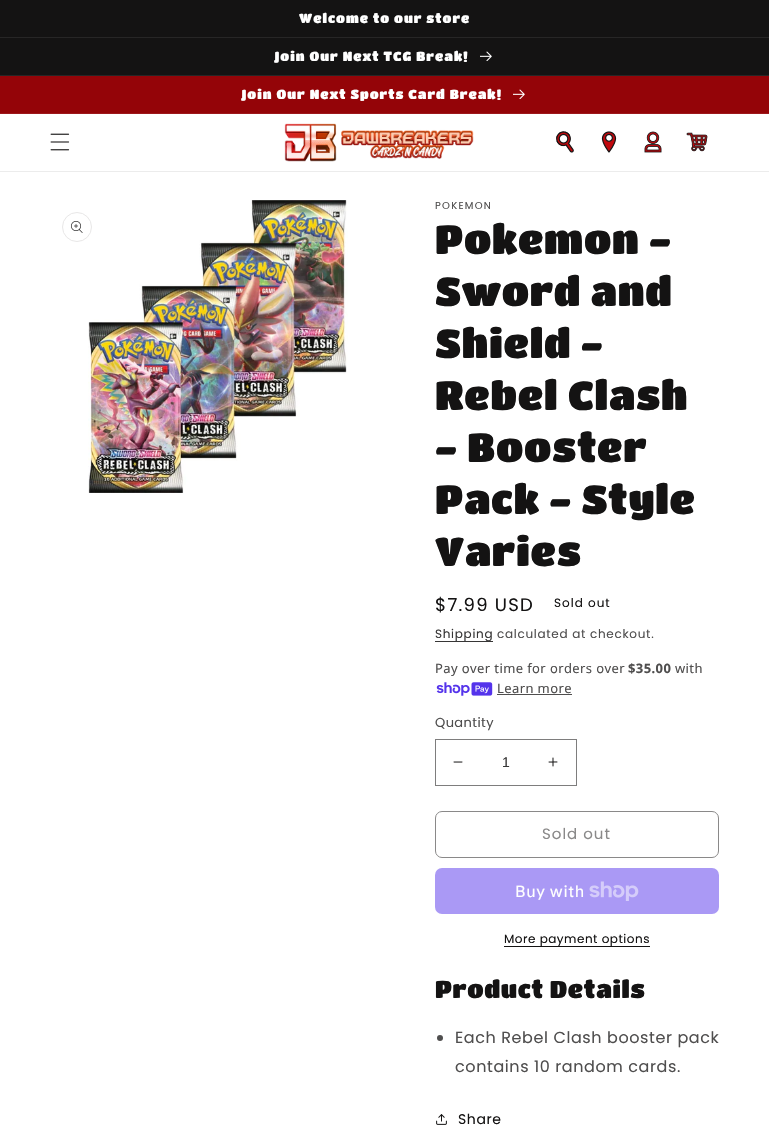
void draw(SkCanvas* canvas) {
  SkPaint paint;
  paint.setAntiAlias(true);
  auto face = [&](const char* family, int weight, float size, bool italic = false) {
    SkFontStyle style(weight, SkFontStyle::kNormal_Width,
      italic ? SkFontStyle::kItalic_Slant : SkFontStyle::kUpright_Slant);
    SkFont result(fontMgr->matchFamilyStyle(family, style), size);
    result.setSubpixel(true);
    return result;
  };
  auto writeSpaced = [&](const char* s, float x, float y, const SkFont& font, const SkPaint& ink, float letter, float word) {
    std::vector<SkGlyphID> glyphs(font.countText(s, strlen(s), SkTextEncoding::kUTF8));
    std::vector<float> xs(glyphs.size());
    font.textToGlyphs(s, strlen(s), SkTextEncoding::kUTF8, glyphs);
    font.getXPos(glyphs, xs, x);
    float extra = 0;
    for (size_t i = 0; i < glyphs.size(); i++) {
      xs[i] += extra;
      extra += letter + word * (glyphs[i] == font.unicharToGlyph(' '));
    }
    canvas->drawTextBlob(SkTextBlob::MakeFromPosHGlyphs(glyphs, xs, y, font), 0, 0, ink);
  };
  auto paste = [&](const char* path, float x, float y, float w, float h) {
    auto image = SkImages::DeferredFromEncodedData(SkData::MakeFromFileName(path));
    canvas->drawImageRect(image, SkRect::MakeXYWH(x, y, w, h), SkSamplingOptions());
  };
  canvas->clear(0xffffffff);
  {
    const struct { float x, y, w, h; SkColor color; } items[] = {
      {0, 0, 769, 37, 0xff141313},
      {0, 37, 769, 1, 0xff272626},
      {0, 38, 769, 37, 0xff141313},
      {0, 75, 769, 1, 0xff272626},
    };
    for (auto [x, y, w, h, color] : items) {
      paint.setColor(color);
      canvas->drawRect(SkRect::MakeXYWH(x, y, w, h), paint);
    }
  }
  paste("img/1.png", 480, 51, 12, 10);
  paint.setColor(0xff940408);
  canvas->drawRect(SkRect::MakeXYWH(0, 76, 769, 37), paint);
  paint.setColor(0xff9d181c);
  canvas->drawRect(SkRect::MakeXYWH(0, 113, 769, 1), paint);
  paste("img/2.png", 513, 89, 12, 10);
  paint.setColor(0xffececec);
  canvas->drawRect(SkRect::MakeXYWH(0, 171, 769, 1), paint);
  paste("img/3.png", 50, 133, 20, 18);
  paste("img/4.png", 284, 123, 190, 39);
  paste("img/5.png", 556, 131, 18, 22);
  paste("img/6.png", 601, 131, 16, 22);
  paste("img/7.png", 644, 131, 18, 22);
  paste("img/8.png", 686, 132, 22, 20);
  paste("img/10.png", 88, 200, 260, 293);
  paint.setStroke(true);
  paint.setStrokeWidth(1);
  paint.setColor(0xffe8e7e7);
  canvas->drawCircle(77, 227, 14.5f, paint);
  paste("img/9.png", 71, 221, 12, 12);
  paint.setStroke(false);
  paint.setColor(0xff373636);
  canvas->drawRect(SkRect::MakeXYWH(435, 641, 58, 1), paint);
  paste("img/11.png", 436, 682, 57, 14);
  paint.setColor(0xff4f4e4e);
  canvas->drawRect(SkRect::MakeXYWH(497, 694, 75, 1), paint);
  paste("img/12.png", 453, 761, 10, 2);
  paste("img/13.png", 548, 757, 10, 10);
  paint.setStroke(true);
  paint.setColor(0xff7e7d7d);
  canvas->drawRect(SkRect::MakeXYWH(435.5f, 739.5f, 141, 46), paint);
  paint.setColor(0xff8a8989);
  canvas->drawRoundRect(SkRect::MakeXYWH(435.5f, 811.5f, 283, 46), 6.5f, 6.5f, paint);
  paint.setStroke(false);
  paint.setColor(0xffaa99f5);
  canvas->drawRoundRect(SkRect::MakeXYWH(435, 868, 284, 46), 7, 7, paint);
  paste("img/14.png", 589, 881, 50, 20);
  paint.setColor(0xff141313);
  canvas->drawRect(SkRect::MakeXYWH(504, 946, 146, 1), paint);
  paint.setColor(0xff4f4e4e);
  canvas->drawCircle(440, 1038, 3, paint);
  paste("img/15.png", 436, 1114, 11, 11);
  auto f0 = face("Titan One", 400, 13);
  paint.setColor(0xffffffff);
  {
    const struct { const char* s; float x, y; } items[] = {
      {"Welcome to our store", 299, 23},
      {"Join Our Next TCG Break!", 274, 61},
      {"Join Our Next Sports Card Break!", 241, 99},
    };
    for (auto [s, x, y] : items) {
      writeSpaced(s, x, y, f0, paint, 1, 0);
    }
  }
  auto f1 = face("Poppins", 400, 10);
  paint.setColor(0xff4f4e4e);
  writeSpaced("POKEMON", 435, 209, f1, paint, 1.25f, 0);
  auto f2 = face("Titan One", 400, 40);
  paint.setColor(0xff141313);
  {
    const struct { const char* s; float x, y; } items[] = {
      {"Pokemon -", 435, 254},
      {"Sword and", 435, 306},
      {"Shield -", 435, 358},
      {"Rebel Clash", 435, 410},
      {"- Booster", 435, 462},
      {"Pack - Style", 435, 514},
      {"Varies", 435, 566},
    };
    for (auto [s, x, y] : items) {
      writeSpaced(s, x, y, f2, paint, 0.6f, 0);
    }
  }
  auto f3 = face("Poppins", 400, 18);
  writeSpaced("$7.99 USD", 435, 611, f3, paint, 1.25f, 0);
  auto f4 = face("Poppins", 400, 12);
  writeSpaced("Sold out", 554, 607, f4, paint, 1, 0);
  paint.setColor(0xff373636);
  writeSpaced("Shipping", 435, 638, f4, paint, 0.7f, 0);
  paint.setColor(0xff4f4e4e);
  writeSpaced("calculated at checkout.", 497, 638, f4, paint, 0.7f, 0);
  auto f5 = face("Noto Sans", 400, 13);
  writeSpaced("Pay over time for orders over", 435, 673, f5, paint, 0.4f, 0);
  auto f6 = face("Noto Sans", 700, 13);
  writeSpaced("$35.00", 628, 673, f6, paint, 0.4f, 0);
  writeSpaced("with", 675, 673, f5, paint, 0.4f, 0);
  writeSpaced("Learn more", 497, 693, f5, paint, 0.4f, 0);
  auto f7 = face("Poppins", 400, 13);
  writeSpaced("Quantity", 435, 727, f7, paint, 0.4f, 0);
  auto f8 = face("Liberation Sans", 400, 14);
  paint.setColor(0xff373636);
  canvas->drawString("1", 502, 767, f8, paint);
  auto f9 = face("Poppins", 400, 15);
  paint.setColor(0xff8a8989);
  writeSpaced("Sold out", 542, 839, f9, paint, 1, 0);
  auto f10 = face("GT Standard", 400, 16);
  paint.setColor(0xffffffff);
  writeSpaced("Buy with", 515, 897, f10, paint, 0.6f, 0);
  paint.setColor(0xff141313);
  writeSpaced("More payment options", 504, 943, f4, paint, 0.5f, 0);
  auto f11 = face("Titan One", 400, 24);
  writeSpaced("Product Details", 435, 998, f11, paint, 0.6f, 0);
  auto f12 = face("Poppins", 400, 16);
  paint.setColor(0xff4f4e4e);
  writeSpaced("Each Rebel Clash booster pack", 455, 1043, f12, paint, 0.6f, 0);
  writeSpaced("contains 10 random cards.", 455, 1072, f12, paint, 0.6f, 0);
  auto f13 = face("Poppins", 400, 14);
  paint.setColor(0xff141313);
  writeSpaced("Share", 458, 1124, f13, paint, 0.6f, 0);
}
